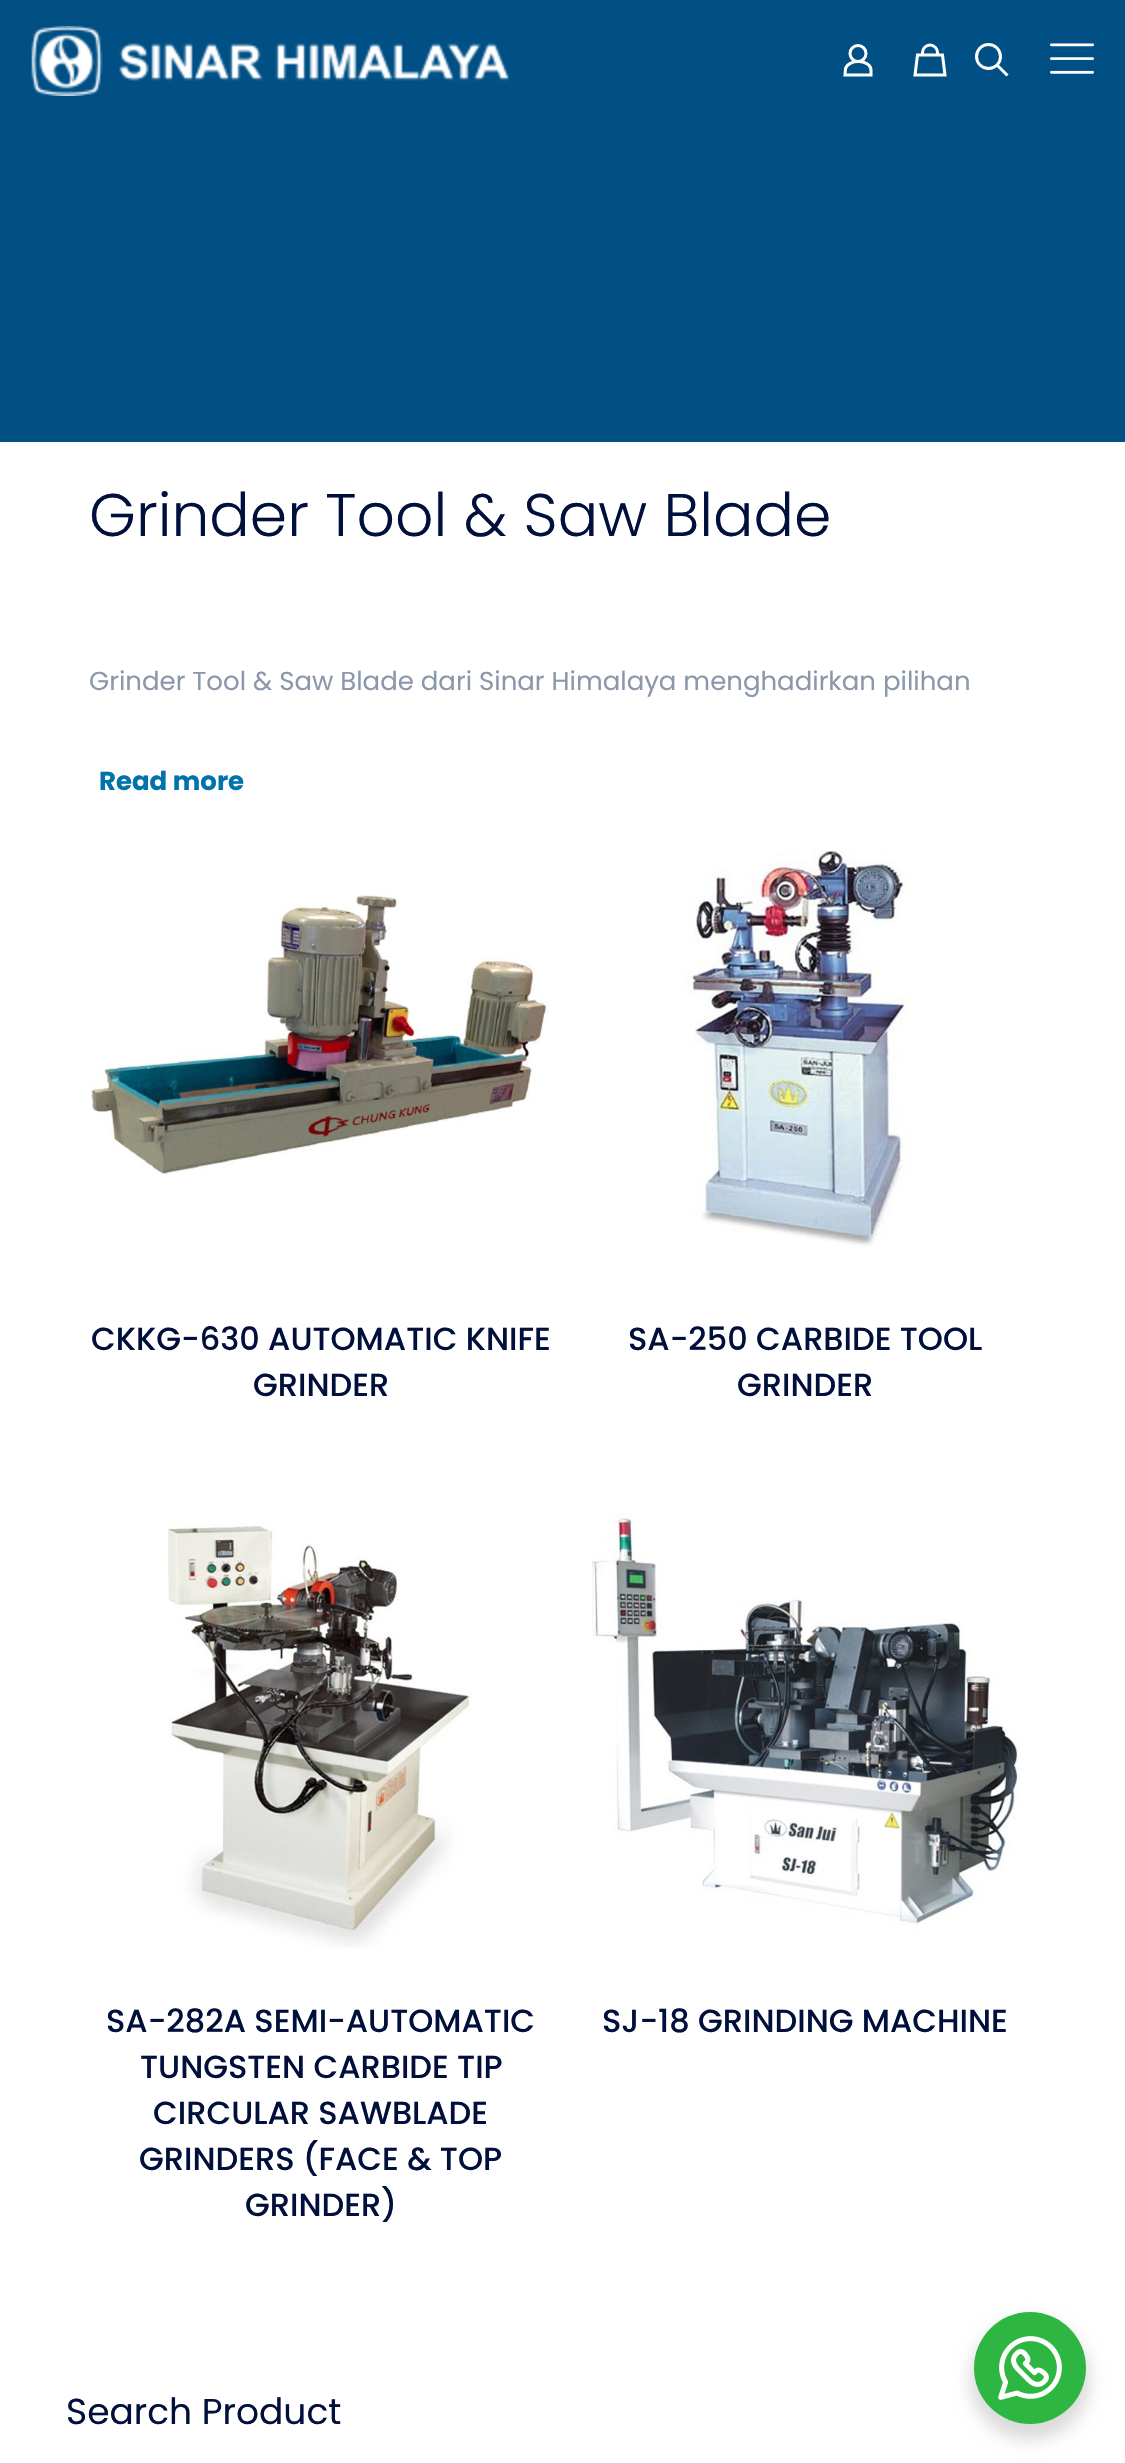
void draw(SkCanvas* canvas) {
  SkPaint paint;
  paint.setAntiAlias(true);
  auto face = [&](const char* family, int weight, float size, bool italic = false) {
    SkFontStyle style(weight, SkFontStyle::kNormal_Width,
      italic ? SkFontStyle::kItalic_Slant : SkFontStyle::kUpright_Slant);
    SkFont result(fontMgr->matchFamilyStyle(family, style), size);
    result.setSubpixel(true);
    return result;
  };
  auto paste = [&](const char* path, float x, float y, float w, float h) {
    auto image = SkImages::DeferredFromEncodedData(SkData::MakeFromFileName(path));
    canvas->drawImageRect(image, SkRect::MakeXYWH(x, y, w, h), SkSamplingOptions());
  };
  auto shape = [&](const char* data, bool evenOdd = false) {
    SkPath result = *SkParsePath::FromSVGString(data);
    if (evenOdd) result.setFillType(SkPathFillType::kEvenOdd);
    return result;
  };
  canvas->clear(0xffffffff);
  paint.setColor(0xff005086);
  canvas->drawRect(SkRect::MakeXYWH(0, 0, 1125, 442), paint);
  paste("img/1.png", 31, 26, 478, 70);
  paste("img/2.png", 1050, 43, 44, 31);
  paint.setStroke(true);
  paint.setStrokeWidth(3);
  paint.setColor(0xffffffff);
  canvas->drawCircle(858, 53.5f, 8, paint);
  canvas->drawPath(shape("M871 70V75H845L845.5 68.5C848.5 58.5 871 59.5 871 70Z"), paint);
  canvas->drawPath(shape("M945 75H915L917.5 55H942.5ZM922.5 55V52.5C922.5 48.5 926 45 930 45C934 45 937.5 48.5 937.5 52.5V55"), paint);
  canvas->drawCircle(988.5f, 56.5f, 12, paint);
  canvas->drawPath(shape("M997 65L1007.5 75.5"), paint);
  paste("img/3.png", 90, 894, 459, 281);
  paste("img/4.png", 681, 850, 232, 398);
  paste("img/5.png", 167, 1523, 305, 425);
  paste("img/6.png", 592, 1513, 429, 419);
  paint.setStroke(false);
  paint.setColor(0x24000000);
  paint.setMaskFilter(SkMaskFilter::MakeBlur(kNormal_SkBlurStyle, 8));
  canvas->drawRoundRect(SkRect::MakeXYWH(970, 2320, 120, 120), 60, 60, paint);
  paint.setMaskFilter(nullptr);
  paint.setColor(0xff2db742);
  canvas->drawCircle(1030, 2368, 56, paint);
  paste("img/7.png", 998, 2336, 64, 64);
  auto f0 = face("Poppins", 300, 60);
  paint.setColor(0xff000f3b);
  canvas->drawString("Grinder Tool & Saw Blade", 89, 536, f0, paint);
  auto f1 = face("Poppins", 400, 26);
  paint.setColor(0xff8b97aa);
  canvas->drawString("Grinder Tool & Saw Blade dari Sinar Himalaya menghadirkan pilihan", 89, 690, f1, paint);
  auto f2 = face("Poppins", 700, 26);
  paint.setColor(0xff0073aa);
  canvas->drawString("Read more", 99, 790, f2, paint);
  auto f3 = face("Poppins", 500, 32);
  paint.setColor(0xff000f3b);
  {
    const struct { const char* s; float x, y; } items[] = {
      {"CKKG-630 AUTOMATIC KNIFE", 91, 1350},
      {"GRINDER", 253, 1396},
      {"SA-250 CARBIDE TOOL", 628, 1350},
      {"GRINDER", 737, 1396},
      {"SA-282A SEMI-AUTOMATIC", 106, 2032},
      {"TUNGSTEN CARBIDE TIP", 140, 2078},
      {"CIRCULAR SAWBLADE", 153, 2124},
      {"GRINDERS (FACE & TOP", 139, 2170},
      {"GRINDER)", 245, 2216},
      {"SJ-18 GRINDING MACHINE", 602, 2032},
    };
    for (auto [s, x, y] : items) {
      canvas->drawString(s, x, y, f3, paint);
    }
  }
  auto f4 = face("Poppins", 400, 36);
  canvas->drawString("Search Product", 66, 2424, f4, paint);
}
